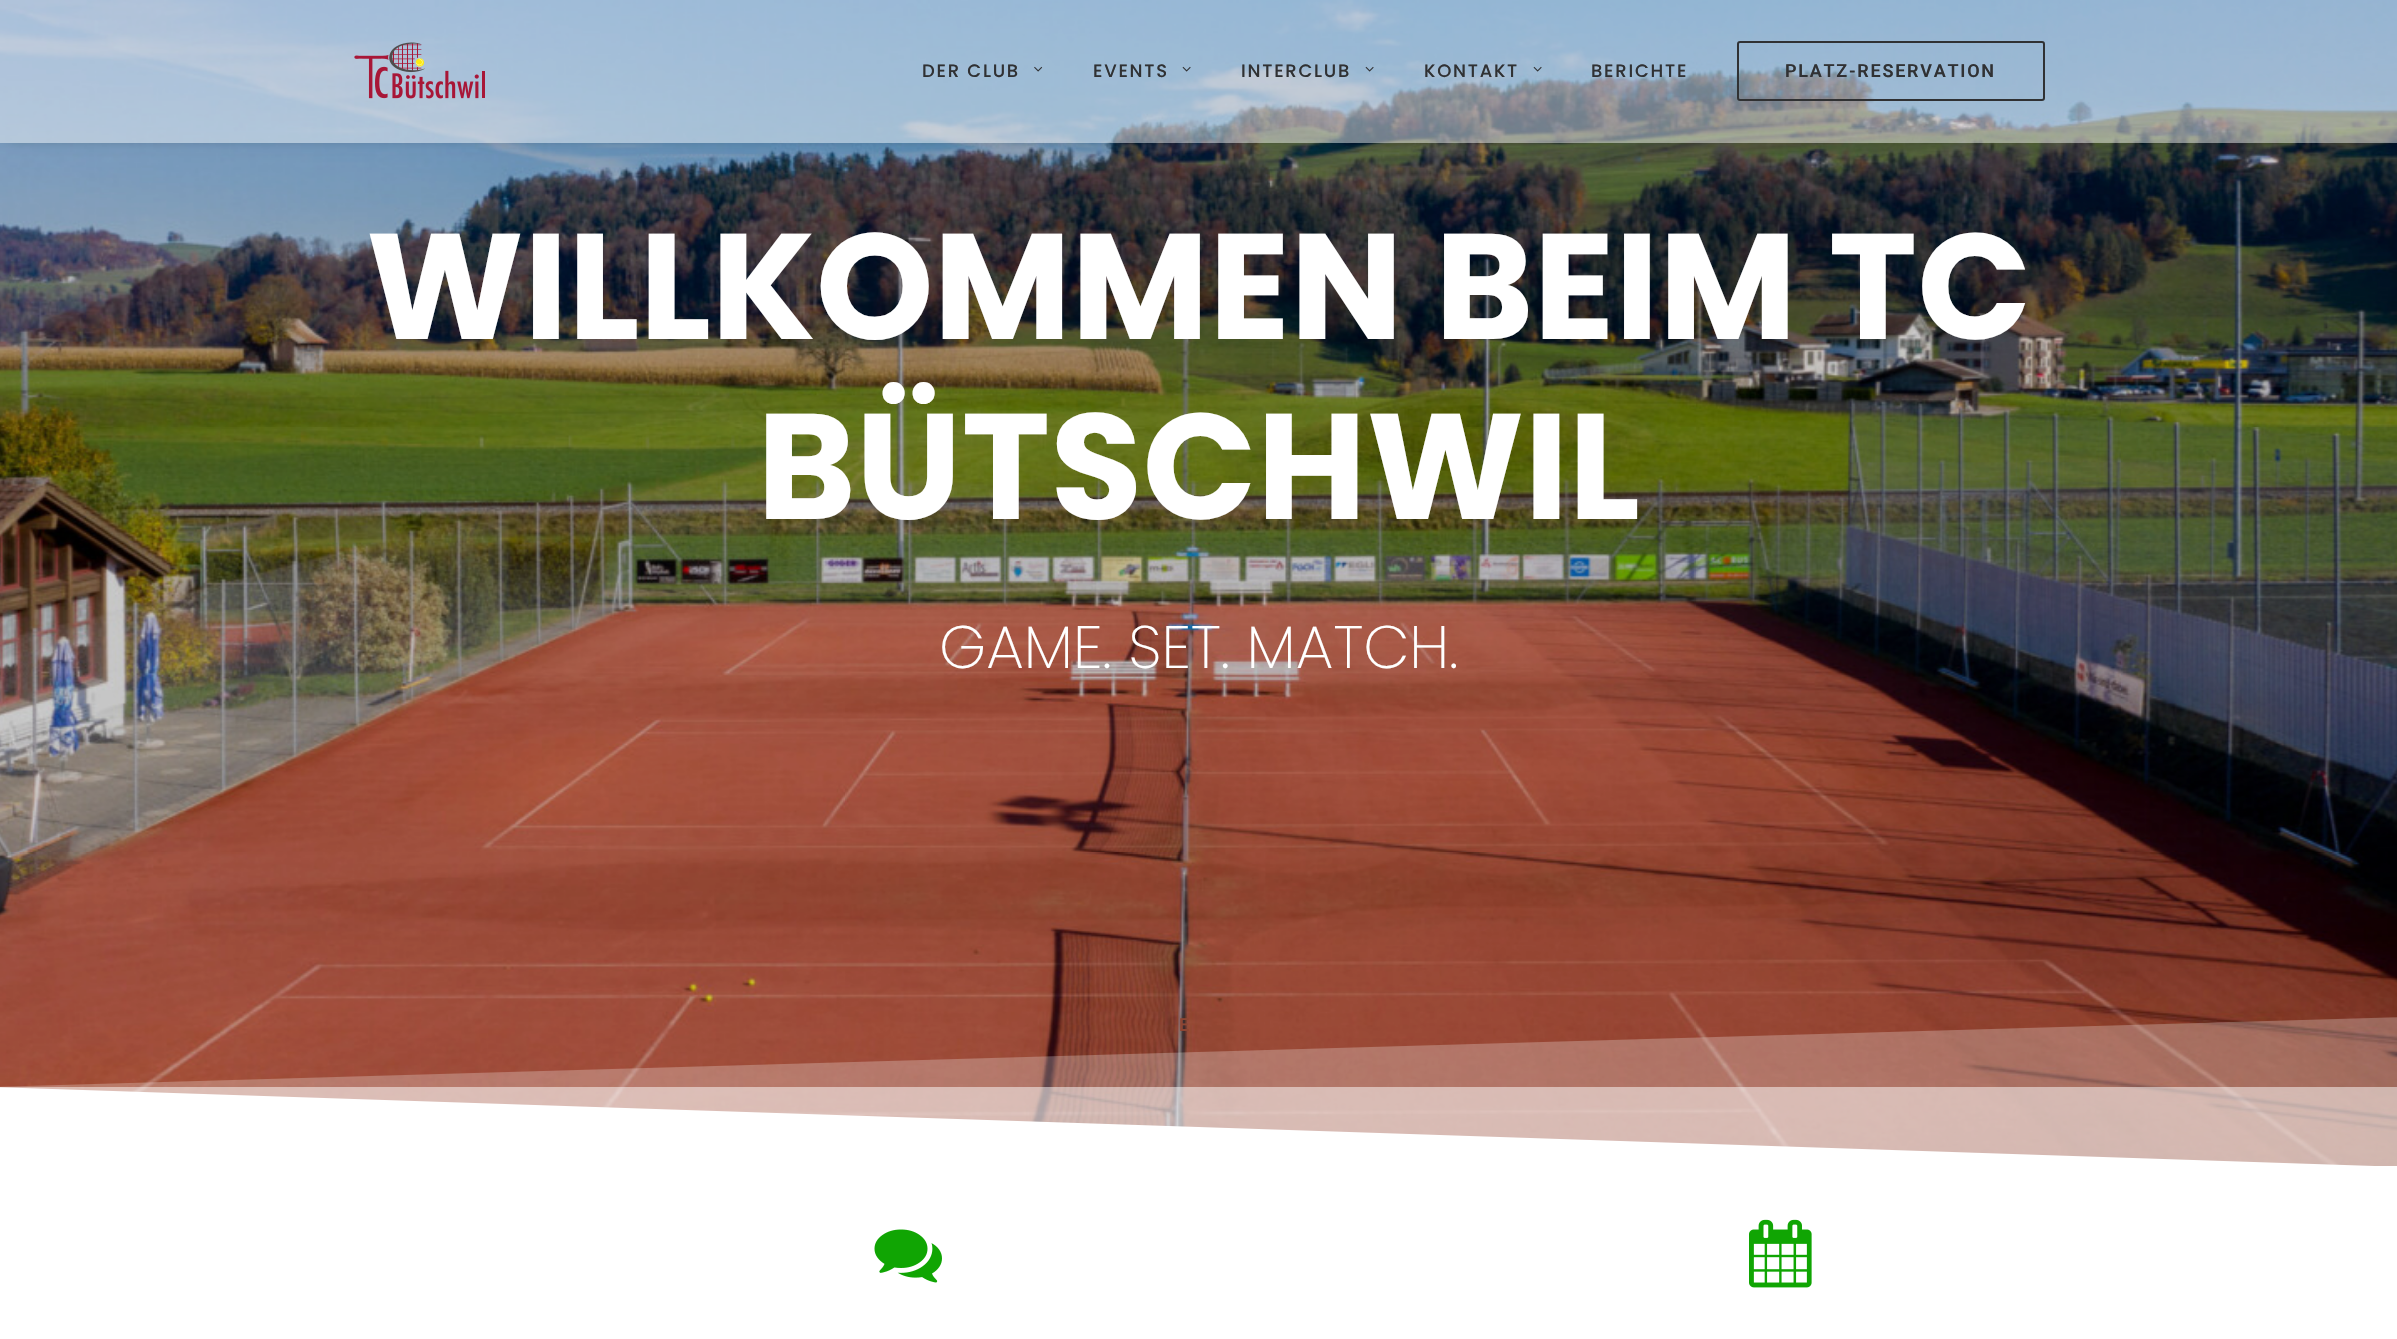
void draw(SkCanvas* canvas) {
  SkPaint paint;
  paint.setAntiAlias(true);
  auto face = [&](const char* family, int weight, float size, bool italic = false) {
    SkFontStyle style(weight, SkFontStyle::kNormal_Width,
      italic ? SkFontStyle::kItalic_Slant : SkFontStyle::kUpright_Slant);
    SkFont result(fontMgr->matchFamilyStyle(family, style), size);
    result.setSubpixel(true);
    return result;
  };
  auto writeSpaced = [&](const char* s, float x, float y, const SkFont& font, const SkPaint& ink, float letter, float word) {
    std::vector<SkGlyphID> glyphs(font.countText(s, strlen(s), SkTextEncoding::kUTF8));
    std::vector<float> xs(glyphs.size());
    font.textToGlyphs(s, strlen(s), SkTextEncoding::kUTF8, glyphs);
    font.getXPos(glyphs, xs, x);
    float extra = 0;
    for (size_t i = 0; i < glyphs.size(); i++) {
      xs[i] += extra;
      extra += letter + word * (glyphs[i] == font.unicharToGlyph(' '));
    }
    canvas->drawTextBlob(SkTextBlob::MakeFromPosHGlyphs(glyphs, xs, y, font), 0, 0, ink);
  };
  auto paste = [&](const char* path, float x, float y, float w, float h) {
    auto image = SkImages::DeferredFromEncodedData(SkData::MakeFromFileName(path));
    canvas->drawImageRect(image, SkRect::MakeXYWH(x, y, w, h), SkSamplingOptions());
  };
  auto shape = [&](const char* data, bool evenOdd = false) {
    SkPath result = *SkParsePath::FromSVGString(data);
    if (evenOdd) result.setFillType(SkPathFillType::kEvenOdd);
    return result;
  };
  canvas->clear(0xffffffff);
  paste("img/6.png", 0, 0, 2397, 1166);
  canvas->save();
  canvas->clipPath(shape("M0 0H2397V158H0ZM-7 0H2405V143H-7Z", true), true);
  paint.setColor(0x99000000);
  paint.setMaskFilter(SkMaskFilter::MakeBlur(kNormal_SkBlurStyle, 7.5f));
  canvas->drawRect(SkRect::MakeXYWH(8, 21, 2382, 113), paint);
  paint.setMaskFilter(nullptr);
  canvas->restore();
  paint.setColor(0x73ffffff);
  canvas->drawRect(SkRect::MakeXYWH(0, 0, 2397, 143), paint);
  paste("img/1.png", 354, 42, 131, 57);
  paste("img/2.png", 1034, 66, 9, 6);
  paste("img/3.png", 1182, 66, 9, 6);
  paste("img/4.png", 1365, 66, 9, 6);
  paste("img/5.png", 1533, 66, 9, 6);
  paint.setStroke(true);
  paint.setStrokeWidth(2);
  paint.setColor(0xff303133);
  canvas->drawRoundRect(SkRect::MakeXYWH(1738, 42, 306, 58), 2, 2, paint);
  paint.setStroke(false);
  paint.setColor(0x40ffffff);
  canvas->drawPath(shape("M-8 1167H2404V1017L-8 1087Z"), paint);
  paint.setColor(0xffffffff);
  canvas->drawPath(shape("M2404 1167H-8V1087Z"), paint);
  paint.setColor(0x80ffffff);
  canvas->drawRect(SkRect::MakeXYWH(0, 1087, 2397, 79), paint);
  paste("img/7.png", 874, 1229, 68, 54);
  paste("img/8.png", 1749, 1219, 63, 69);
  auto f0 = face("Poppins", 500, 18);
  paint.setColor(0xff303133);
  {
    const struct { const char* s; float x, y; } items[] = {
      {"DER CLUB", 922, 77},
      {"EVENTS", 1093, 77},
      {"INTERCLUB", 1241, 77},
      {"KONTAKT", 1424, 77},
      {"BERICHTE", 1591, 77},
    };
    for (auto [s, x, y] : items) {
      writeSpaced(s, x, y, f0, paint, 1.75f, 0);
    }
  }
  auto f1 = face("Roboto", 600, 18);
  writeSpaced("PLATZ-RESERVATION", 1785, 77, f1, paint, 1.75f, 0);
  auto f2 = face("Poppins", 700, 150);
  paint.setColor(0xffffffff);
  canvas->drawString("WILLKOMMEN BEIM TC", 366, 339, f2, paint);
  canvas->drawString("BÜTSCHWIL", 757, 519, f2, paint);
  auto f3 = face("Poppins", 200, 60);
  canvas->drawString("GAME. SET. MATCH.", 939, 668, f3, paint);
  paint.setColor(0xff8d4533);
  writeSpaced("E", 1179, 1031, f1, paint, 1.75f, 0);
}
